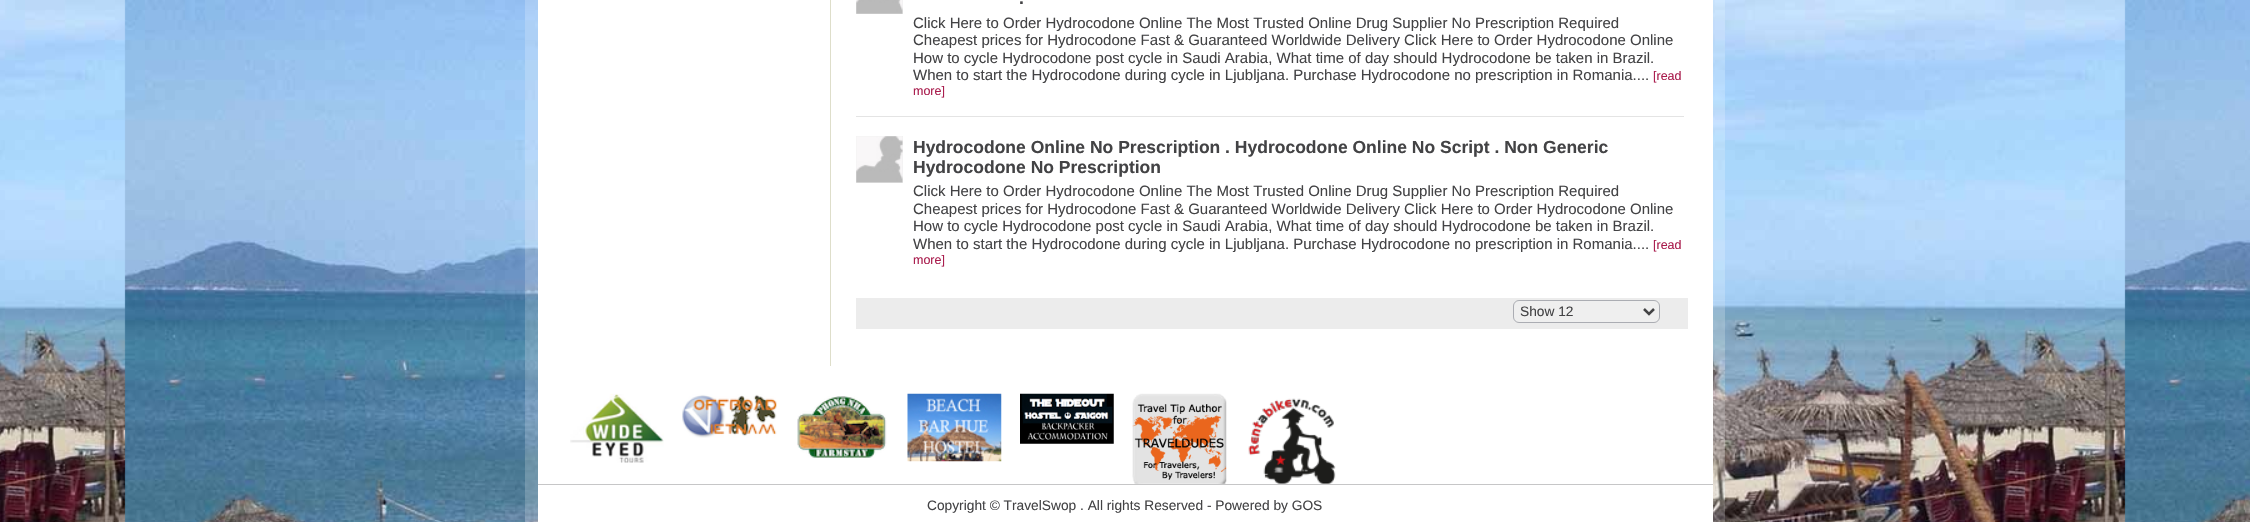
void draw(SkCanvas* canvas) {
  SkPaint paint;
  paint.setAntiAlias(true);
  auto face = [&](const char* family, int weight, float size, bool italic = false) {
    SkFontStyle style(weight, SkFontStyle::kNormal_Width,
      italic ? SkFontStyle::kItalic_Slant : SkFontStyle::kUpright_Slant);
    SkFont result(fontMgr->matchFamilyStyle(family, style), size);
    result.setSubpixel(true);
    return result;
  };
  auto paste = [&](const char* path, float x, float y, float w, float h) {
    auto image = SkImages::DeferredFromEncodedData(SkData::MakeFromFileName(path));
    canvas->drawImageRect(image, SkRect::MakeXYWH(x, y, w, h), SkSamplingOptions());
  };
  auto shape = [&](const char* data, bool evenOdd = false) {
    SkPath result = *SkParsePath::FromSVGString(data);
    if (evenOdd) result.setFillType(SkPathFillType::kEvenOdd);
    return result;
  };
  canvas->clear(0xffffffff);
  paste("img/1.png", 0, 0, 2250, 522);
  {
    const struct { float x, y, w, h; SkColor color; } items[] = {
      {525, 0, 1200, 522, 0x33ffffff},
      {538, 0, 1175, 522, 0xffffffff},
      {830, 0, 1, 366, 0xffdedeca},
      {856, 116, 828, 1, 0xffe4e4e4},
      {856, 0, 47, 14, 0xffeeeeee},
    };
    for (auto [x, y, w, h, color] : items) {
      paint.setColor(color);
      canvas->drawRect(SkRect::MakeXYWH(x, y, w, h), paint);
    }
  }
  paste("img/2.png", 856, 0, 47, 14);
  canvas->drawRect(SkRect::MakeXYWH(856, 136, 47, 47), paint);
  paste("img/3.png", 856, 136, 47, 47);
  paint.setColor(0xffececec);
  canvas->drawRect(SkRect::MakeXYWH(856, 298, 832, 31), paint);
  paint.setColor(0xffefefef);
  canvas->drawRoundRect(SkRect::MakeXYWH(1513.5f, 300.5f, 146, 22), 5.5f, 5.5f, paint);
  paint.setStroke(true);
  paint.setStrokeWidth(1);
  paint.setColor(0xffabadb3);
  canvas->drawRoundRect(SkRect::MakeXYWH(1513.5f, 300.5f, 146, 22), 5.5f, 5.5f, paint);
  paint.setStrokeWidth(2.5f);
  paint.setColor(0xff434345);
  canvas->drawPath(shape("M1644 309L1649 314L1654 309"), paint);
  paste("img/4.png", 570, 393, 94, 70);
  paste("img/5.png", 682, 394, 95, 44);
  paste("img/6.png", 797, 396, 90, 62);
  paste("img/7.png", 907, 393, 95, 69);
  paste("img/8.png", 1020, 393, 94, 51);
  paste("img/9.png", 1132, 393, 95, 91);
  paste("img/10.png", 1248, 398, 88, 86);
  paint.setStroke(false);
  paint.setColor(0xffc6c6c7);
  canvas->drawRect(SkRect::MakeXYWH(538, 484, 1175, 1), paint);
  auto f0 = face("Liberation Sans", 700, 17.5f);
  paint.setColor(0xff434345);
  canvas->drawString(".", 1019, 4, f0, paint);
  auto f1 = face("Liberation Sans", 400, 15);
  {
    const struct { const char* s; float x, y; } items[] = {
      {"Click Here to Order Hydrocodone Online The Most Trusted Online Drug Supplier No Prescription Required", 913, 28},
      {"Cheapest prices for Hydrocodone Fast & Guaranteed Worldwide Delivery Click Here to Order Hydrocodone Online", 913, 45},
      {"How to cycle Hydrocodone post cycle in Saudi Arabia, What time of day should Hydrocodone be taken in Brazil.", 913, 63},
      {"When to start the Hydrocodone during cycle in Ljubljana. Purchase Hydrocodone no prescription in Romania....", 913, 80},
    };
    for (auto [s, x, y] : items) {
      canvas->drawString(s, x, y, f1, paint);
    }
  }
  auto f2 = face("Liberation Sans", 400, 12.5f);
  paint.setColor(0xffa91c4d);
  canvas->drawString("[read", 1653, 80, f2, paint);
  canvas->drawString("more]", 913, 95, f2, paint);
  paint.setColor(0xff434345);
  canvas->drawString("Hydrocodone Online No Prescription . Hydrocodone Online No Script . Non Generic", 913, 153, f0, paint);
  canvas->drawString("Hydrocodone No Prescription", 913, 173, f0, paint);
  {
    const struct { const char* s; float x, y; } items[] = {
      {"Click Here to Order Hydrocodone Online The Most Trusted Online Drug Supplier No Prescription Required", 913, 196},
      {"Cheapest prices for Hydrocodone Fast & Guaranteed Worldwide Delivery Click Here to Order Hydrocodone Online", 913, 214},
      {"How to cycle Hydrocodone post cycle in Saudi Arabia, What time of day should Hydrocodone be taken in Brazil.", 913, 231},
      {"When to start the Hydrocodone during cycle in Ljubljana. Purchase Hydrocodone no prescription in Romania....", 913, 249},
    };
    for (auto [s, x, y] : items) {
      canvas->drawString(s, x, y, f1, paint);
    }
  }
  paint.setColor(0xffa91c4d);
  canvas->drawString("[read", 1653, 249, f2, paint);
  canvas->drawString("more]", 913, 264, f2, paint);
  auto f3 = face("Liberation Sans", 400, 13.75f);
  paint.setColor(0xff434345);
  canvas->drawString("Show 12", 1520, 316, f3, paint);
  canvas->drawString("Copyright © TravelSwop . All rights Reserved - Powered by GOS", 927, 510, f3, paint);
}
